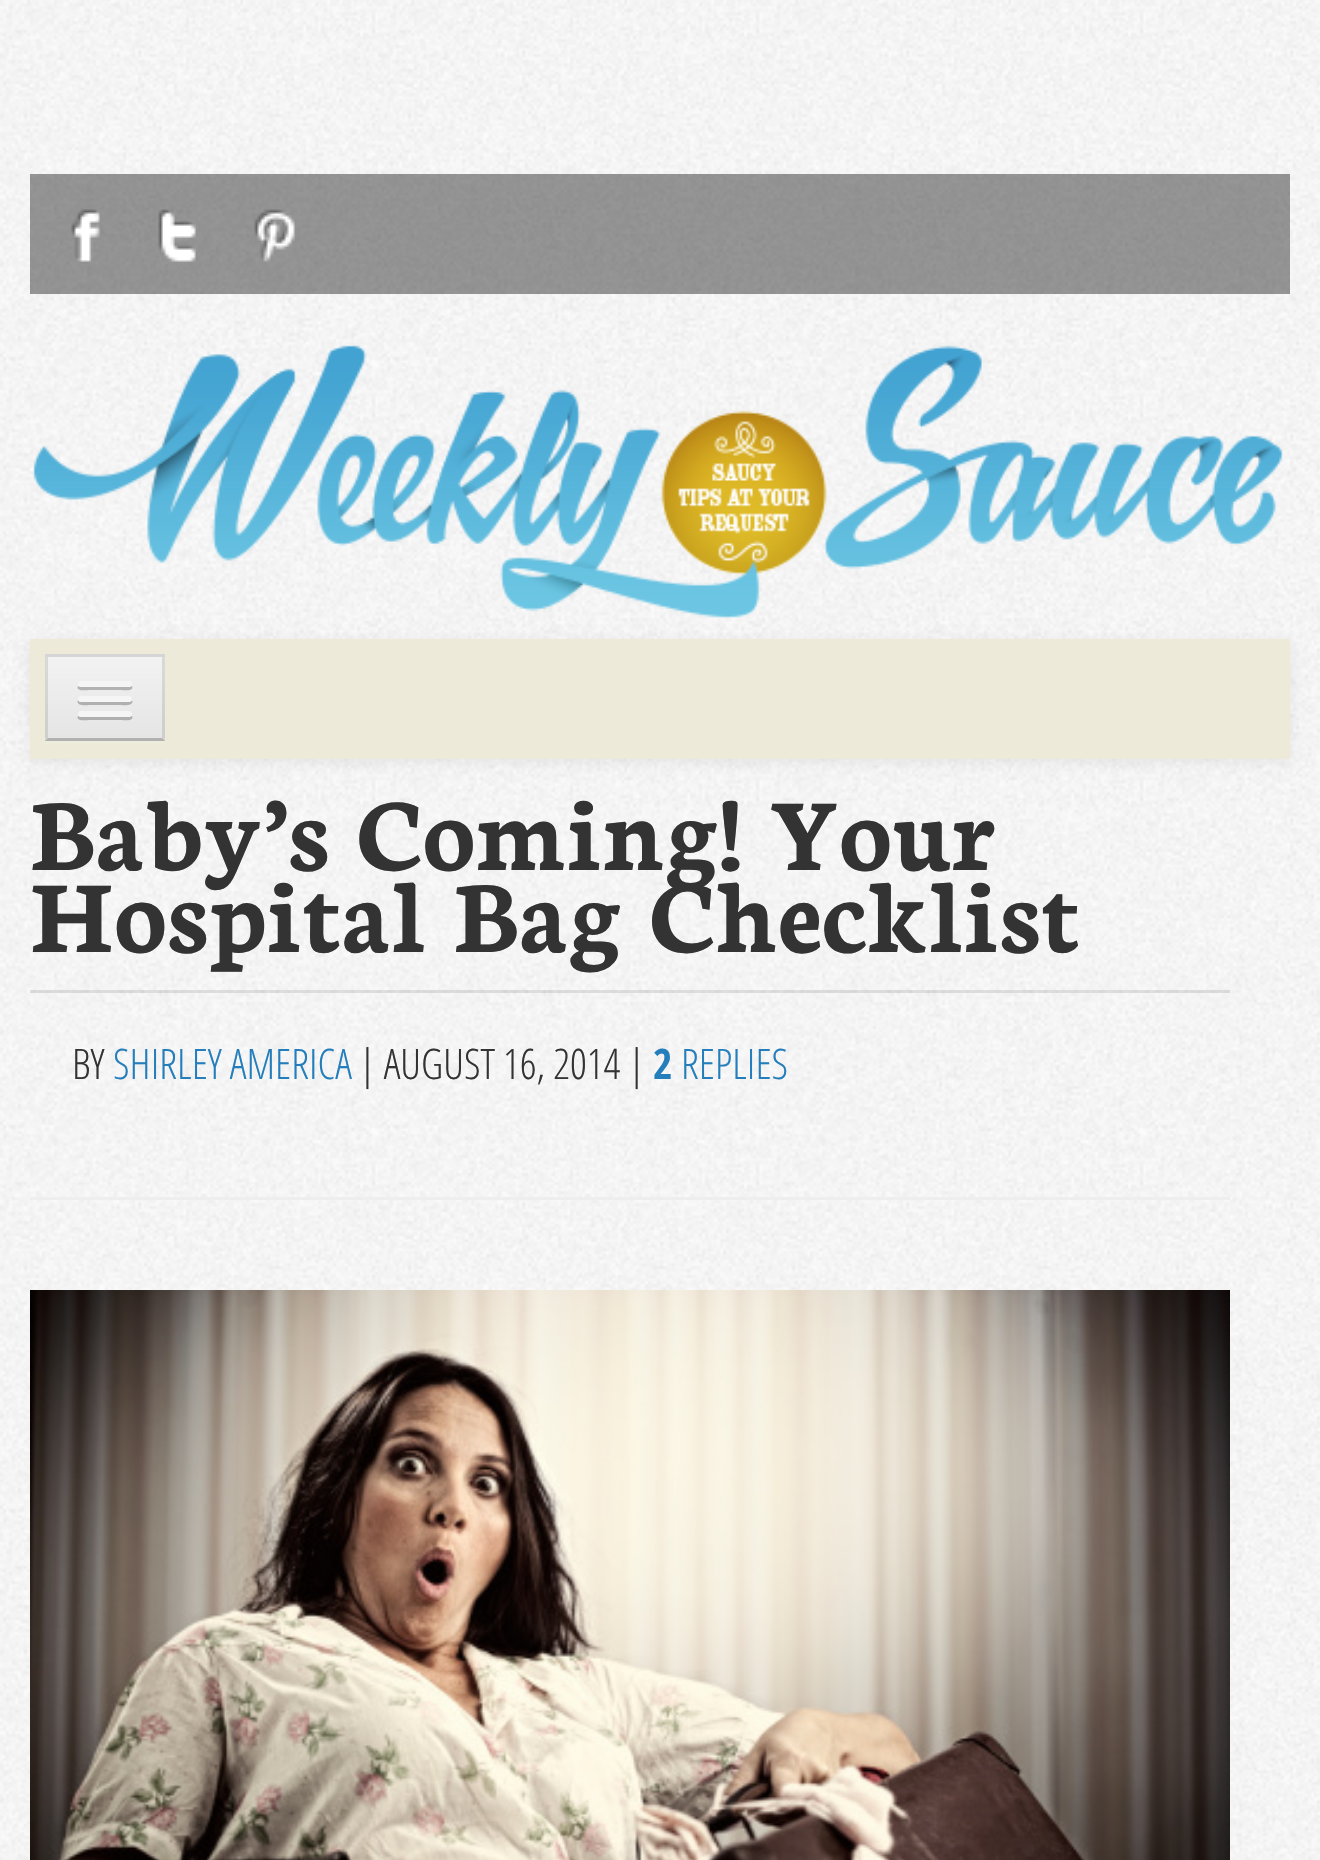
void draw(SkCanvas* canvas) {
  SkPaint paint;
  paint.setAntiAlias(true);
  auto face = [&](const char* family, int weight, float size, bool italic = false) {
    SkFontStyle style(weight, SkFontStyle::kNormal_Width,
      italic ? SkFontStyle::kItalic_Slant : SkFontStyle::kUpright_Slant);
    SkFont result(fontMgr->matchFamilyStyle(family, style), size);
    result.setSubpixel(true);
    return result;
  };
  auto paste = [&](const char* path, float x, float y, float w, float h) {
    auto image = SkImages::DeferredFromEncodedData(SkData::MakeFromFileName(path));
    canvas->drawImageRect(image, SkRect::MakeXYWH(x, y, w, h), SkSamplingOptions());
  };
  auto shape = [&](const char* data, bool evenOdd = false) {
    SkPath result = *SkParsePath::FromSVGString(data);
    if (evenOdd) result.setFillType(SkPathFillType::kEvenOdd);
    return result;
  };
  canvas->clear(0xffffffff);
  paste("img/1.png", 0, 0, 1320, 1860);
  paint.setColor(0x66000000);
  canvas->drawRect(SkRect::MakeXYWH(30, 174, 1260, 120), paint);
  paste("img/2.png", 71, 209, 29, 53);
  paste("img/3.png", 158, 209, 38, 53);
  paste("img/4.png", 254, 209, 41, 53);
  paste("img/5.png", 33, 345, 1250, 273);
  paint.setColor(0x12000000);
  paint.setMaskFilter(SkMaskFilter::MakeBlur(kNormal_SkBlurStyle, 6));
  canvas->drawRect(SkRect::MakeXYWH(30, 642, 1260, 120), paint);
  paint.setMaskFilter(nullptr);
  {
    const struct { float x, y, w, h; SkColor color; } items[] = {
      {30, 639, 1260, 120, 0xffedead9},
      {45, 741, 120, 3, 0xffeeecdc},
      {45, 654, 120, 87, 0xffededed},
    };
    for (auto [x, y, w, h, color] : items) {
      paint.setColor(color);
      canvas->drawRect(SkRect::MakeXYWH(x, y, w, h), paint);
    }
  }
  {
    const SkColor colors[] = {0xfff2f2f2, 0xffe5e5e5};
    const float stops[] = {0, 1};
    const SkPoint ends[] = {{105, 657}, {105, 738}};
    paint.setShader(SkGradientShader::MakeLinear(ends, colors, stops, 2, SkTileMode::kClamp));
    paint.setAlpha(255);
  }
  canvas->drawRect(SkRect::MakeXYWH(45, 657, 120, 81), paint);
  paint.setShader(nullptr);
  paint.setColor(0xffd5d5d5);
  canvas->drawPath(shape("M45 654H165L162 657H48Z"), paint);
  paint.setColor(0x1a000000);
  canvas->drawPath(shape("M165 654V741L162 738V657Z"), paint);
  paint.setColor(0x40000000);
  canvas->drawPath(shape("M165 741H45L48 738H162Z"), paint);
  paint.setColor(0x1a000000);
  canvas->drawPath(shape("M45 741V654L48 657V738Z"), paint);
  paint.setColor(0xffb2b2b2);
  canvas->drawPath(shape("M78 686C75 692 89 690 89 690H121C121 690 135 692 132 686C131 686 130 687 129 687H81C80 687 79 686 78 686Z"), paint);
  paint.setColor(0xfff5f5f5);
  canvas->drawRoundRect(SkRect::MakeXYWH(78, 681, 54, 6), 3, 3, paint);
  paint.setColor(0xffb0b0b0);
  canvas->drawPath(shape("M78 700C75 707 89 705 89 705H121C121 705 135 707 132 700C131 701 130 702 129 702H81C80 702 79 701 78 700Z"), paint);
  paint.setColor(0xfff5f5f5);
  canvas->drawRoundRect(SkRect::MakeXYWH(78, 696, 54, 6), 3, 3, paint);
  paint.setColor(0xffaeaeae);
  canvas->drawPath(shape("M78 716C75 722 89 720 89 720H121C121 720 135 722 132 716C131 716 130 717 129 717H81C80 717 79 716 78 716Z"), paint);
  paint.setColor(0xfff5f5f5);
  canvas->drawRoundRect(SkRect::MakeXYWH(78, 711, 54, 6), 3, 3, paint);
  paint.setColor(0xffeeeeee);
  canvas->drawRect(SkRect::MakeXYWH(30, 1197, 1200, 3), paint);
  paint.setColor(0x1a000000);
  canvas->drawRect(SkRect::MakeXYWH(30, 990, 1200, 3), paint);
  paste("img/6.png", 30, 1290, 1200, 570);
  auto f0 = face("Neuton", 700, 109.25f);
  paint.setColor(0xff333333);
  canvas->drawString("Baby’s Coming! Your", 30, 870, f0, paint);
  canvas->drawString("Hospital Bag Checklist", 30, 952, f0, paint);
  auto f1 = face("Open Sans Condensed", 300, 42);
  canvas->drawString("BY", 72, 1079, f1, paint);
  paint.setColor(0xff257ebc);
  canvas->drawString("SHIRLEY AMERICA", 113, 1079, f1, paint);
  paint.setColor(0xff333333);
  canvas->drawString("| AUGUST 16, 2014 |", 359, 1079, f1, paint);
  auto f2 = face("Open Sans Condensed", 700, 42);
  paint.setColor(0xff257ebc);
  canvas->drawString("2", 653, 1079, f2, paint);
  canvas->drawString("REPLIES", 681, 1079, f1, paint);
}
